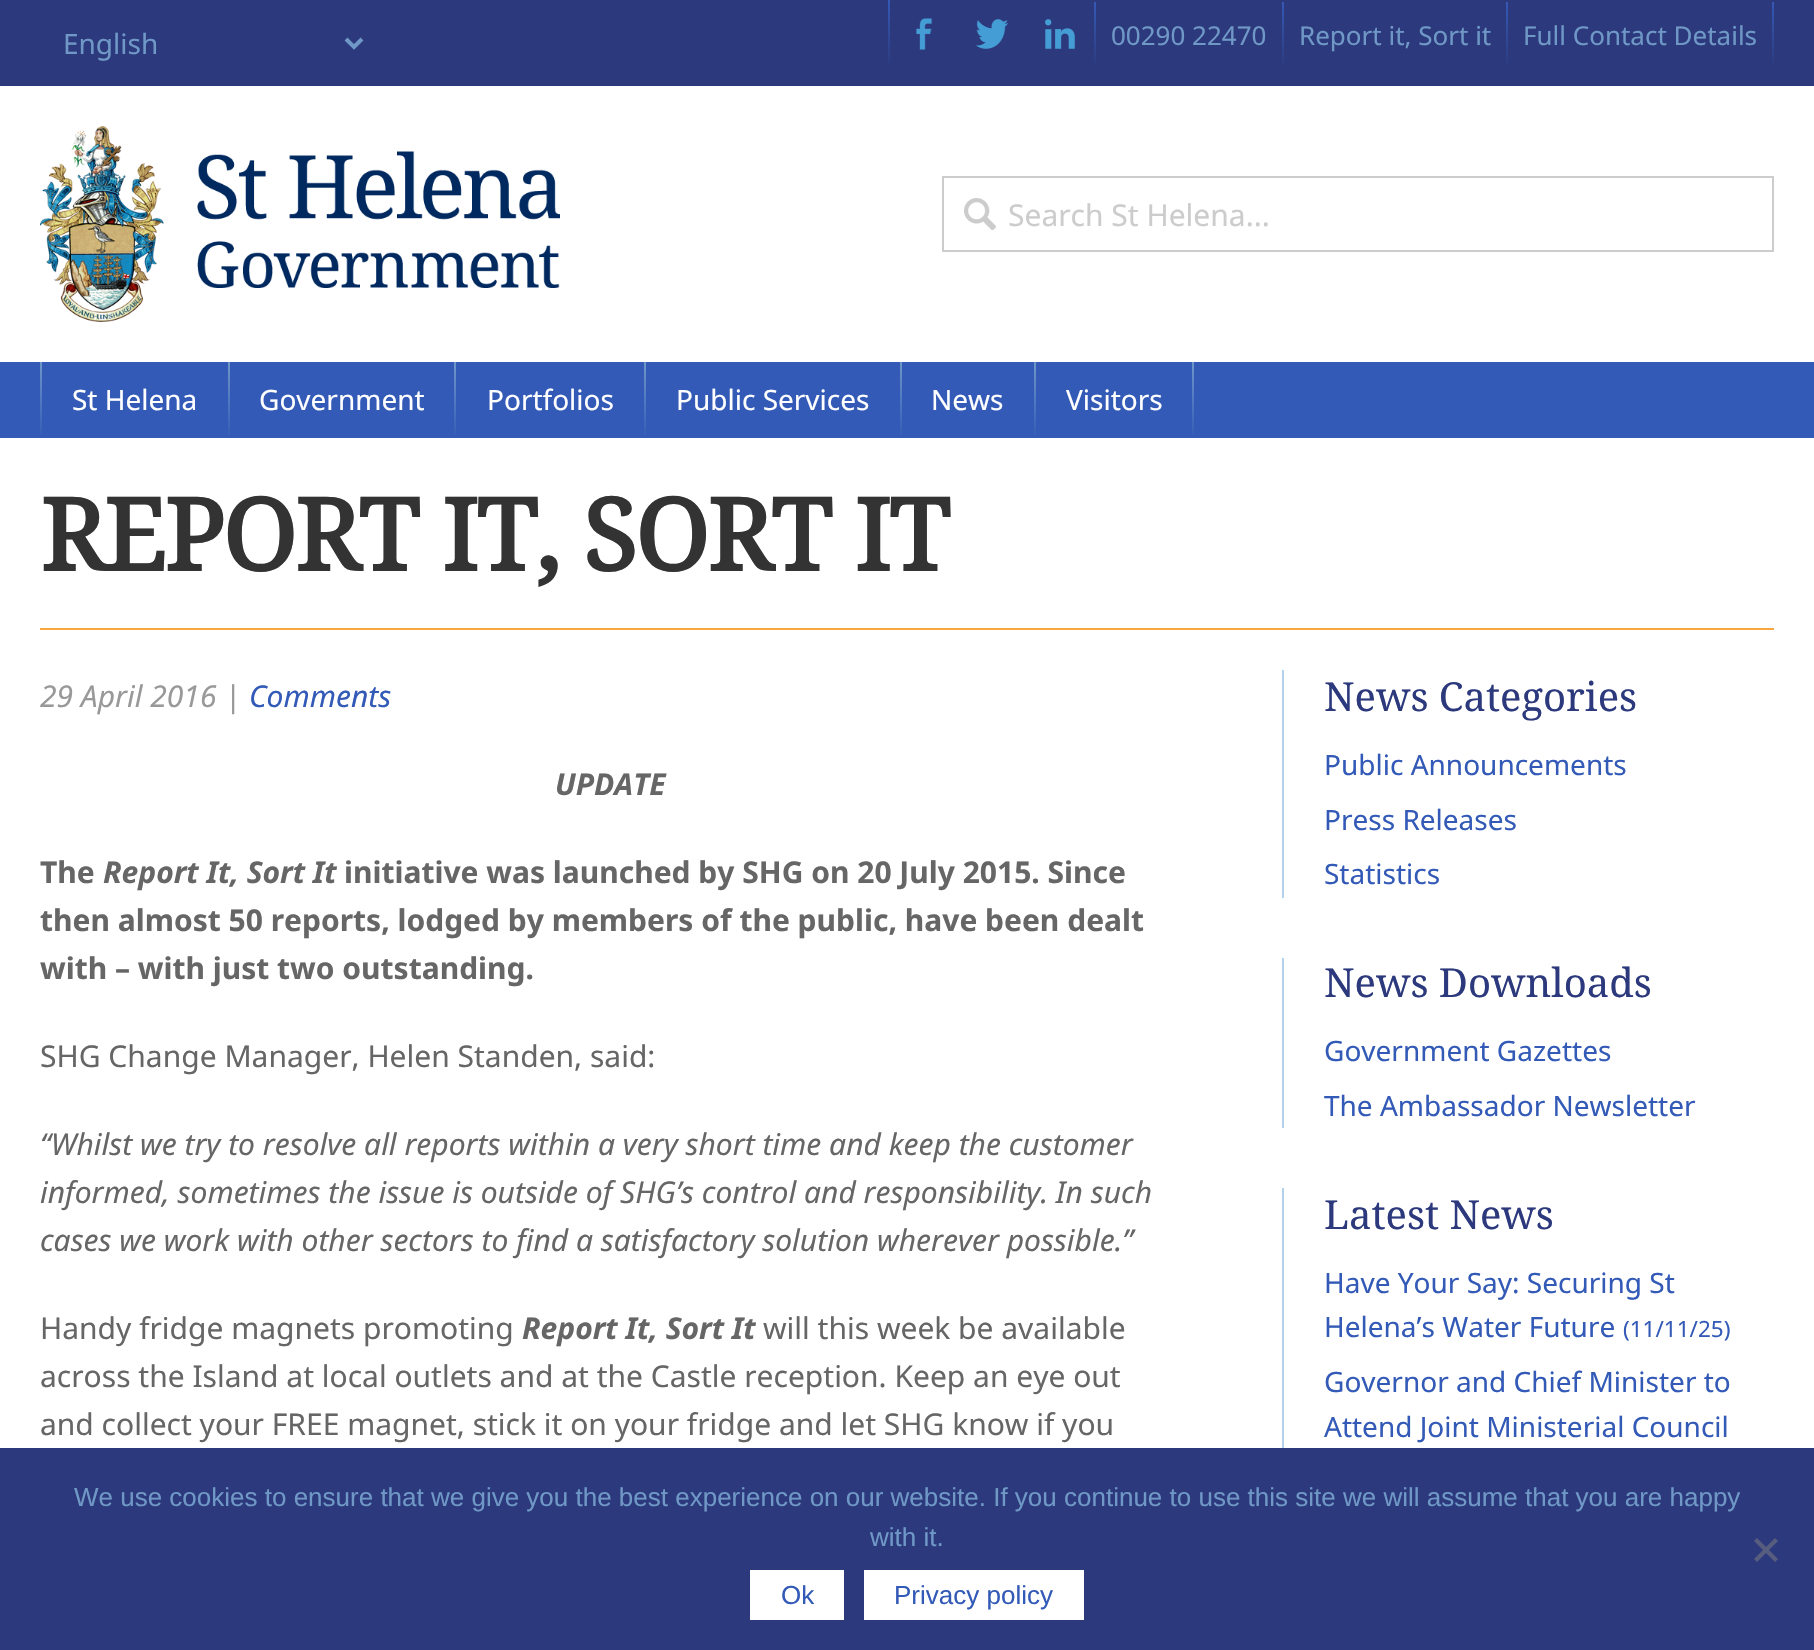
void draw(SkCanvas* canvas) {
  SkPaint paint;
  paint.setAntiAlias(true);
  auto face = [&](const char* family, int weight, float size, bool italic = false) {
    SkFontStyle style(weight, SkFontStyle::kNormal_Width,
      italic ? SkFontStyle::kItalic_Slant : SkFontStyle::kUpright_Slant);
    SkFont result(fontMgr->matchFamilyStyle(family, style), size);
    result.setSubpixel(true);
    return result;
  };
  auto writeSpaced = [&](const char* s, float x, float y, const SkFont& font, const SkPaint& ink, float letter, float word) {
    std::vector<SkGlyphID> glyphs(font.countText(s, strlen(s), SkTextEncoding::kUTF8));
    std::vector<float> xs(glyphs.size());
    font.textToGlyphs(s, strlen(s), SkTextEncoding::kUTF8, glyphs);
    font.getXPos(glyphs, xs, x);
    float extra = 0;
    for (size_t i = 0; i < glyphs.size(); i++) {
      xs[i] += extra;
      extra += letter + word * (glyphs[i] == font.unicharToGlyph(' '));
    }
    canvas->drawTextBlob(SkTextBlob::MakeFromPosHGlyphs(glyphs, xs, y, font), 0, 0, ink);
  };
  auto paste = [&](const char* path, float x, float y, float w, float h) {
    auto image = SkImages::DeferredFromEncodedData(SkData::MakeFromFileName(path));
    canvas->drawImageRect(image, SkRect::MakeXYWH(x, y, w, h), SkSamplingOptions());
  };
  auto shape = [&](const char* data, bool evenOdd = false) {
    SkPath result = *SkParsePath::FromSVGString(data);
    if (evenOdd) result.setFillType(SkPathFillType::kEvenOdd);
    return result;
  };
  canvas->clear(0xffffffff);
  paint.setColor(0xff2c397c);
  canvas->drawRect(SkRect::MakeXYWH(0, 0, 1814, 86), paint);
  paint.setStroke(true);
  paint.setStrokeWidth(4);
  paint.setColor(0xff6f98c7);
  canvas->drawPath(shape("M346 39L354 47L362 39"), paint);
  paste("img/1.png", 916, 18, 16, 32);
  paste("img/2.png", 888, 0, 2, 66);
  paste("img/3.png", 976, 19, 32, 30);
  paste("img/4.png", 1045, 19, 30, 30);
  paste("img/5.png", 1094, 2, 2, 63);
  paste("img/6.png", 1282, 2, 2, 63);
  paste("img/7.png", 1506, 2, 268, 63);
  paste("img/8.png", 40, 126, 520, 196);
  paste("img/9.png", 964, 198, 32, 32);
  paint.setStrokeWidth(2);
  paint.setColor(0xffcccccc);
  canvas->drawRect(SkRect::MakeXYWH(943, 177, 830, 74), paint);
  paint.setStroke(false);
  paint.setColor(0xff335ab7);
  canvas->drawRect(SkRect::MakeXYWH(0, 362, 1814, 76), paint);
  paste("img/10.png", 40, 362, 190, 73);
  paste("img/11.png", 454, 362, 2, 73);
  paste("img/11.png", 644, 362, 2, 73);
  paste("img/12.png", 900, 362, 2, 73);
  paste("img/12.png", 1034, 362, 2, 73);
  paste("img/11.png", 1192, 362, 2, 73);
  {
    const struct { float x, y, w, h; SkColor color; } items[] = {
      {40, 628, 1734, 2, 0xfff7a640},
      {1282, 670, 2, 228, 0xffb2d1ec},
      {1282, 958, 2, 170, 0xffb2d1ec},
      {1282, 1188, 2, 260, 0xffb2d1ec},
      {0, 1448, 1814, 202, 0xff2c397c},
    };
    for (auto [x, y, w, h, color] : items) {
      paint.setColor(color);
      canvas->drawRect(SkRect::MakeXYWH(x, y, w, h), paint);
    }
  }
  paint.setColor(0xff565d7e);
  canvas->drawPath(shape("M1775 1538L1778 1541L1757 1562L1754 1559Z"), paint);
  canvas->drawPath(shape("M1754 1541L1757 1538L1778 1559L1775 1562Z"), paint);
  paint.setColor(0xffffffff);
  canvas->drawRect(SkRect::MakeXYWH(750, 1570, 94, 50), paint);
  canvas->drawRect(SkRect::MakeXYWH(864, 1570, 220, 50), paint);
  auto f0 = face("Noto Sans", 400, 28);
  paint.setColor(0xff6f98c7);
  canvas->drawString("English", 63, 54, f0, paint);
  auto f1 = face("Noto Sans", 400, 26);
  {
    const struct { const char* s; float x, y; } items[] = {
      {"00290 22470", 1111, 45},
      {"Report it, Sort it", 1299, 45},
      {"Full Contact Details", 1523, 45},
    };
    for (auto [s, x, y] : items) {
      canvas->drawString(s, x, y, f1, paint);
    }
  }
  auto f2 = face("Noto Sans", 400, 30);
  paint.setColor(0xffcccccc);
  canvas->drawString("Search St Helena...", 1008, 226, f2, paint);
  paint.setColor(0xffffffff);
  {
    const struct { const char* s; float x, y; } items[] = {
      {"St Helena", 72, 410},
      {"Government", 259, 410},
      {"Portfolios", 487, 410},
      {"Public Services", 676, 410},
      {"News", 931, 410},
      {"Visitors", 1066, 410},
    };
    for (auto [s, x, y] : items) {
      canvas->drawString(s, x, y, f0, paint);
    }
  }
  auto f3 = face("Noto Serif", 700, 100);
  paint.setColor(0xff333333);
  writeSpaced("REPORT IT, SORT IT", 40, 571, f3, paint, -2, 0);
  auto f4 = face("Noto Sans", 400, 30, true);
  paint.setColor(0xff999999);
  canvas->drawString("29 April 2016 |", 40, 707, f4, paint);
  paint.setColor(0xff335ab7);
  canvas->drawString("Comments", 249, 707, f4, paint);
  auto f5 = face("Noto Sans", 700, 30, true);
  paint.setColor(0xff666666);
  canvas->drawString("UPDATE", 555, 795, f5, paint);
  auto f6 = face("Noto Sans", 700, 30);
  canvas->drawString("The", 40, 883, f6, paint);
  canvas->drawString("Report It, Sort It", 103, 883, f5, paint);
  {
    const struct { const char* s; float x, y; } items[] = {
      {"initiative was launched by SHG on 20 July 2015. Since", 344, 883},
      {"then almost 50 reports, lodged by members of the public, have been dealt", 40, 931},
      {"with – with just two outstanding.", 40, 979},
    };
    for (auto [s, x, y] : items) {
      canvas->drawString(s, x, y, f6, paint);
    }
  }
  canvas->drawString("SHG Change Manager, Helen Standen, said:", 40, 1067, f2, paint);
  {
    const struct { const char* s; float x, y; } items[] = {
      {"“Whilst we try to resolve all reports within a very short time and keep the customer", 40, 1155},
      {"informed, sometimes the issue is outside of SHG’s control and responsibility. In such", 40, 1203},
      {"cases we work with other sectors to find a satisfactory solution wherever possible.”", 40, 1251},
    };
    for (auto [s, x, y] : items) {
      canvas->drawString(s, x, y, f4, paint);
    }
  }
  canvas->drawString("Handy fridge magnets promoting", 40, 1339, f2, paint);
  canvas->drawString("Report It, Sort It", 522, 1339, f5, paint);
  {
    const struct { const char* s; float x, y; } items[] = {
      {"will this week be available", 763, 1339},
      {"across the Island at local outlets and at the Castle reception. Keep an eye out", 40, 1387},
      {"and collect your FREE magnet, stick it on your fridge and let SHG know if you", 40, 1435},
    };
    for (auto [s, x, y] : items) {
      canvas->drawString(s, x, y, f2, paint);
    }
  }
  auto f7 = face("Noto Serif", 400, 40);
  paint.setColor(0xff2c397c);
  canvas->drawString("News Categories", 1324, 711, f7, paint);
  paint.setColor(0xff335ab7);
  {
    const struct { const char* s; float x, y; } items[] = {
      {"Public Announcements", 1324, 775},
      {"Press Releases", 1324, 830},
      {"Statistics", 1324, 884},
    };
    for (auto [s, x, y] : items) {
      canvas->drawString(s, x, y, f0, paint);
    }
  }
  paint.setColor(0xff2c397c);
  canvas->drawString("News Downloads", 1324, 997, f7, paint);
  paint.setColor(0xff335ab7);
  canvas->drawString("Government Gazettes", 1324, 1061, f0, paint);
  canvas->drawString("The Ambassador Newsletter", 1324, 1116, f0, paint);
  paint.setColor(0xff2c397c);
  canvas->drawString("Latest News", 1324, 1229, f7, paint);
  paint.setColor(0xff335ab7);
  canvas->drawString("Have Your Say: Securing St", 1324, 1293, f0, paint);
  canvas->drawString("Helena’s Water Future", 1324, 1337, f0, paint);
  auto f8 = face("Noto Sans", 400, 22.5f);
  canvas->drawString("(11/11/25)", 1623, 1337, f8, paint);
  canvas->drawString("Governor and Chief Minister to", 1324, 1392, f0, paint);
  canvas->drawString("Attend Joint Ministerial Council", 1324, 1437, f0, paint);
  auto f9 = face("Liberation Sans", 400, 26);
  paint.setColor(0xff6f98c7);
  canvas->drawString("We use cookies to ensure that we give you the best experience on our website. If you continue to use this site we will assume that you are happy", 74, 1506, f9, paint);
  canvas->drawString("with it.", 870, 1546, f9, paint);
  paint.setColor(0xff335ab7);
  canvas->drawString("Ok", 781, 1604, f9, paint);
  canvas->drawString("Privacy policy", 894, 1604, f9, paint);
}
